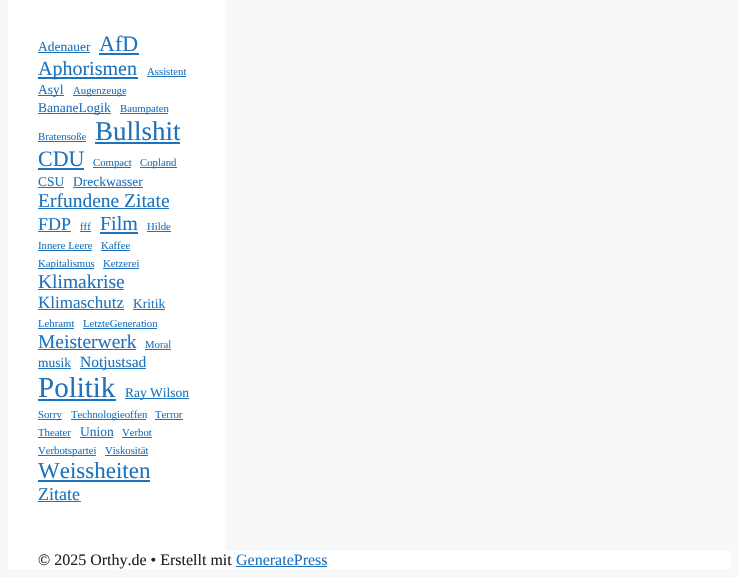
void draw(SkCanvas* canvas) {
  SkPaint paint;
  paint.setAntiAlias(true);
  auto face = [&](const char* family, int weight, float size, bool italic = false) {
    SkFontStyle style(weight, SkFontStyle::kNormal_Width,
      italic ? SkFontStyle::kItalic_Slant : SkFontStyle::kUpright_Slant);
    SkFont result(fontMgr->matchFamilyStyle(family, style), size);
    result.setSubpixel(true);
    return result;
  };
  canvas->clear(0xfff7f8f9);
  {
    const struct { float x, y, w, h; SkColor color; } items[] = {
      {8, 0, 217, 551, 0xffffffff},
      {38, 52, 52, 1, 0xff1e73be},
      {99, 53, 40, 2, 0xff1e73be},
      {38, 77, 100, 2, 0xff1e73be},
      {147, 76, 39, 1, 0xff1e73be},
      {38, 95, 26, 1, 0xff1e73be},
      {73, 95, 53, 1, 0xff1e73be},
      {38, 113, 73, 1, 0xff1e73be},
      {120, 113, 48, 1, 0xff1e73be},
      {38, 141, 48, 1, 0xff1e73be},
      {95, 142, 85, 2, 0xff1e73be},
      {38, 168, 46, 2, 0xff1e73be},
      {93, 167, 38, 1, 0xff1e73be},
      {140, 167, 37, 1, 0xff1e73be},
      {38, 187, 26, 1, 0xff1e73be},
      {73, 187, 70, 1, 0xff1e73be},
      {38, 208, 131, 1, 0xff1e73be},
      {38, 231, 33, 1, 0xff1e73be},
      {80, 231, 11, 1, 0xff1e73be},
      {100, 232, 38, 2, 0xff1e73be},
      {147, 231, 24, 1, 0xff1e73be},
      {38, 250, 54, 1, 0xff1e73be},
      {101, 250, 29, 1, 0xff1e73be},
      {38, 268, 56, 1, 0xff1e73be},
      {103, 268, 36, 1, 0xff1e73be},
      {38, 289, 86, 1, 0xff1e73be},
      {38, 309, 86, 1, 0xff1e73be},
      {133, 309, 32, 1, 0xff1e73be},
      {38, 328, 36, 1, 0xff1e73be},
      {83, 328, 74, 1, 0xff1e73be},
      {38, 349, 98, 1, 0xff1e73be},
      {145, 349, 26, 1, 0xff1e73be},
      {38, 368, 33, 1, 0xff1e73be},
      {80, 368, 66, 1, 0xff1e73be},
      {38, 399, 78, 2, 0xff1e73be},
      {125, 398, 64, 1, 0xff1e73be},
      {38, 419, 24, 1, 0xff1e73be},
      {71, 419, 75, 1, 0xff1e73be},
      {155, 419, 28, 1, 0xff1e73be},
      {38, 437, 33, 1, 0xff1e73be},
      {80, 437, 33, 1, 0xff1e73be},
      {122, 437, 30, 1, 0xff1e73be},
      {38, 455, 58, 1, 0xff1e73be},
      {105, 455, 43, 1, 0xff1e73be},
      {38, 480, 112, 2, 0xff1e73be},
      {38, 501, 43, 1, 0xff1e73be},
      {8, 551, 723, 18, 0xffffffff},
      {236, 566, 91, 1, 0xff1e73be},
    };
    for (auto [x, y, w, h, color] : items) {
      paint.setColor(color);
      canvas->drawRect(SkRect::MakeXYWH(x, y, w, h), paint);
    }
  }
  auto f0 = face("Liberation Serif", 400, 13.5f);
  canvas->drawString("Adenauer", 38, 51, f0, paint);
  auto f1 = face("Liberation Serif", 400, 22);
  canvas->drawString("AfD", 99, 51, f1, paint);
  auto f2 = face("Liberation Serif", 400, 20);
  canvas->drawString("Aphorismen", 38, 75, f2, paint);
  auto f3 = face("Liberation Serif", 400, 10.75f);
  canvas->drawString("Assistent", 147, 75, f3, paint);
  canvas->drawString("Asyl", 38, 94, f0, paint);
  canvas->drawString("Augenzeuge", 73, 94, f3, paint);
  canvas->drawString("BananeLogik", 38, 112, f0, paint);
  canvas->drawString("Baumpaten", 120, 112, f3, paint);
  canvas->drawString("Bratensoße", 38, 140, f3, paint);
  auto f4 = face("Liberation Serif", 400, 27);
  canvas->drawString("Bullshit", 95, 140, f4, paint);
  canvas->drawString("CDU", 38, 166, f1, paint);
  canvas->drawString("Compact", 93, 166, f3, paint);
  canvas->drawString("Copland", 140, 166, f3, paint);
  canvas->drawString("CSU", 38, 186, f0, paint);
  canvas->drawString("Dreckwasser", 73, 186, f0, paint);
  auto f5 = face("Liberation Serif", 400, 19.5f);
  canvas->drawString("Erfundene Zitate", 38, 207, f5, paint);
  auto f6 = face("Liberation Serif", 400, 18);
  canvas->drawString("FDP", 38, 230, f6, paint);
  canvas->drawString("fff", 80, 230, f3, paint);
  canvas->drawString("Film", 100, 230, f2, paint);
  {
    const struct { const char* s; float x, y; } items[] = {
      {"Hilde", 147, 230},
      {"Innere Leere", 38, 249},
      {"Kaffee", 101, 249},
      {"Kapitalismus", 38, 267},
      {"Ketzerei", 103, 267},
    };
    for (auto [s, x, y] : items) {
      canvas->drawString(s, x, y, f3, paint);
    }
  }
  canvas->drawString("Klimakrise", 38, 288, f5, paint);
  auto f7 = face("Liberation Serif", 400, 17);
  canvas->drawString("Klimaschutz", 38, 308, f7, paint);
  canvas->drawString("Kritik", 133, 308, f0, paint);
  canvas->drawString("Lehramt", 38, 327, f3, paint);
  canvas->drawString("LetzteGeneration", 83, 327, f3, paint);
  canvas->drawString("Meisterwerk", 38, 348, f5, paint);
  canvas->drawString("Moral", 145, 348, f3, paint);
  canvas->drawString("musik", 38, 367, f0, paint);
  auto f8 = face("Liberation Serif", 400, 15.5f);
  canvas->drawString("Notjustsad", 80, 367, f8, paint);
  auto f9 = face("Liberation Serif", 400, 29);
  canvas->drawString("Politik", 38, 397, f9, paint);
  canvas->drawString("Ray Wilson", 125, 397, f0, paint);
  {
    const struct { const char* s; float x, y; } items[] = {
      {"Sorry", 38, 418},
      {"Technologieoffen", 71, 418},
      {"Terror", 155, 418},
      {"Theater", 38, 436},
    };
    for (auto [s, x, y] : items) {
      canvas->drawString(s, x, y, f3, paint);
    }
  }
  canvas->drawString("Union", 80, 436, f0, paint);
  {
    const struct { const char* s; float x, y; } items[] = {
      {"Verbot", 122, 436},
      {"Verbotspartei", 38, 454},
      {"Viskosität", 105, 454},
    };
    for (auto [s, x, y] : items) {
      canvas->drawString(s, x, y, f3, paint);
    }
  }
  auto f10 = face("Liberation Serif", 400, 23);
  canvas->drawString("Weissheiten", 38, 478, f10, paint);
  canvas->drawString("Zitate", 38, 500, f6, paint);
  auto f11 = face("Liberation Serif", 400, 16);
  paint.setColor(0xff222222);
  canvas->drawString("© 2025 Orthy.de • Erstellt mit", 38, 565, f11, paint);
  paint.setColor(0xff1e73be);
  canvas->drawString("GeneratePress", 236, 565, f11, paint);
}
